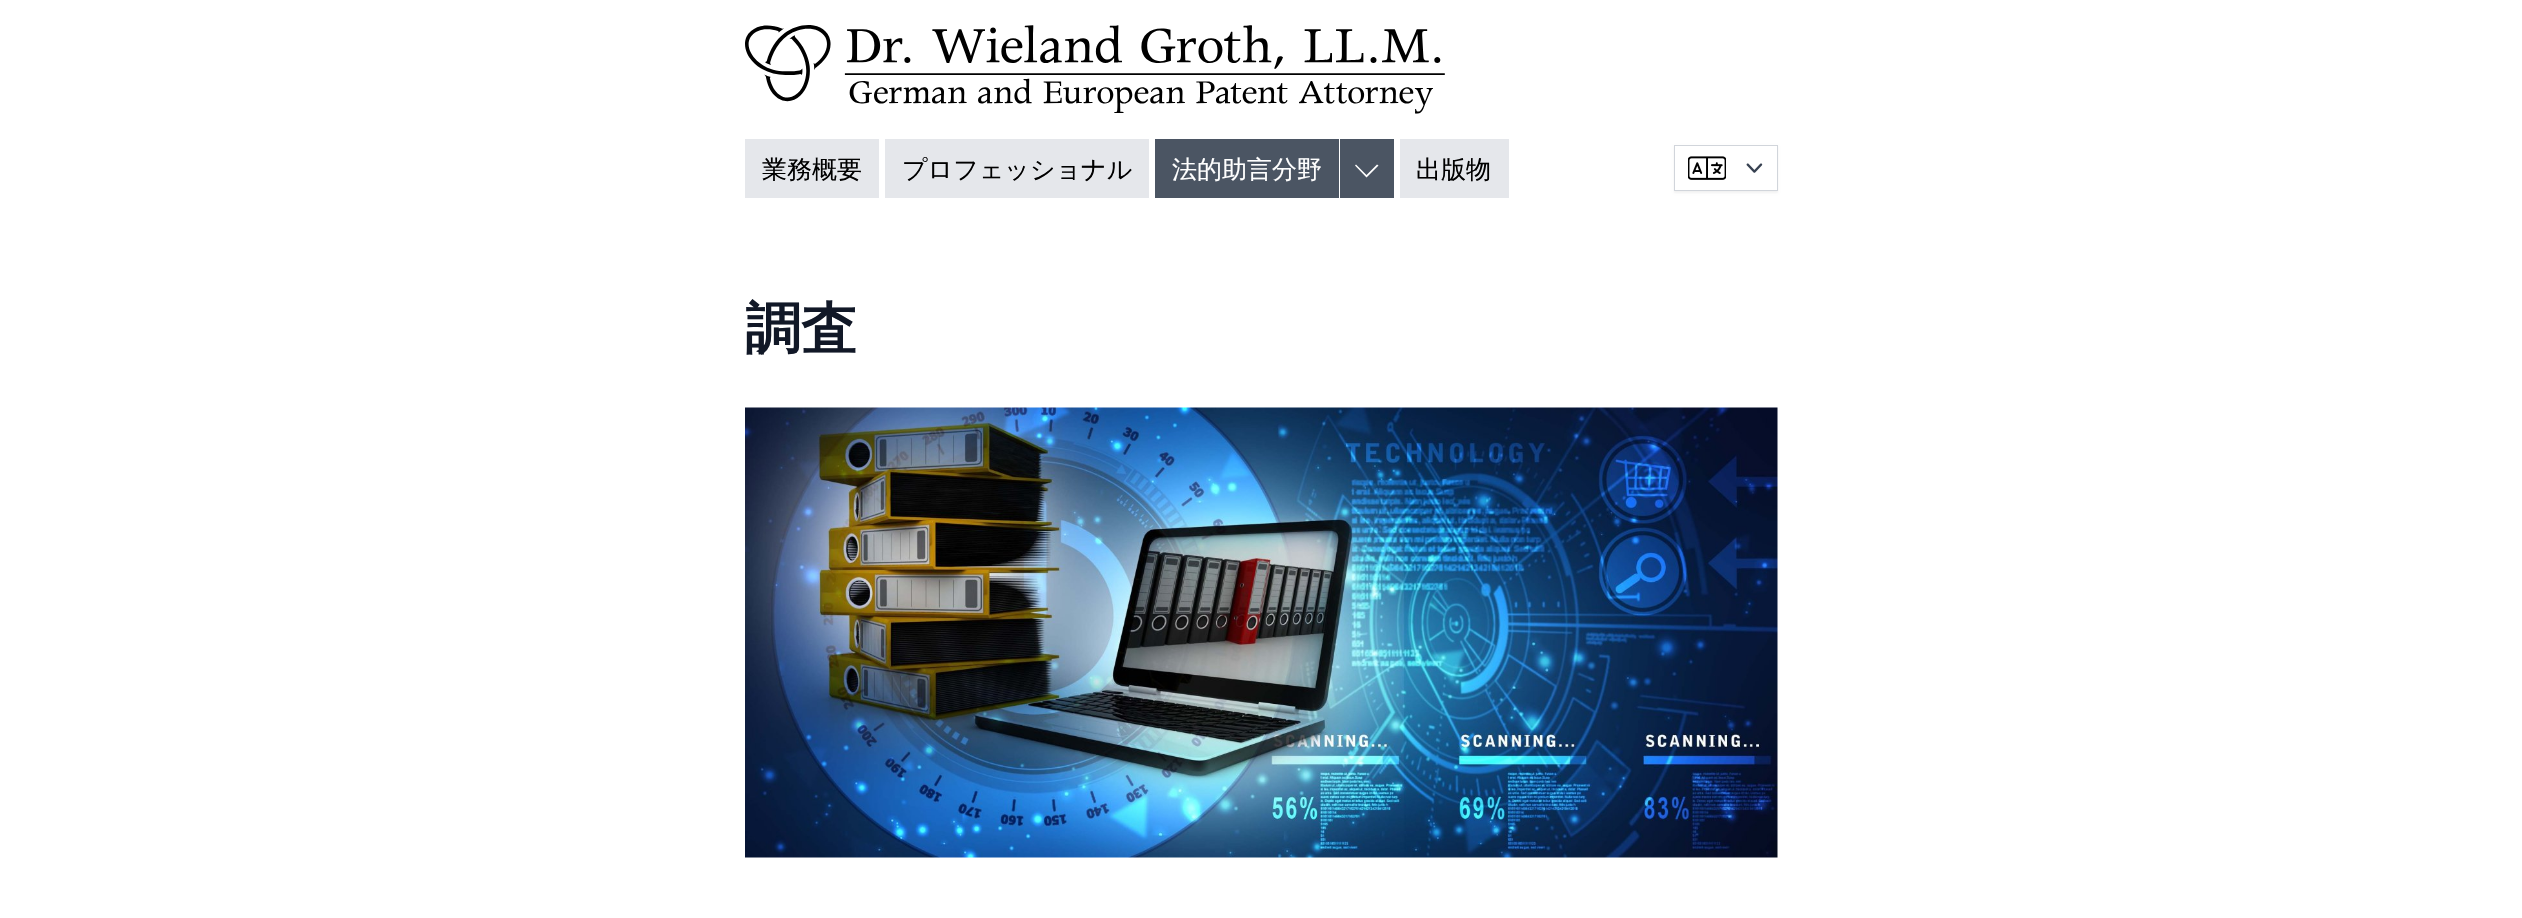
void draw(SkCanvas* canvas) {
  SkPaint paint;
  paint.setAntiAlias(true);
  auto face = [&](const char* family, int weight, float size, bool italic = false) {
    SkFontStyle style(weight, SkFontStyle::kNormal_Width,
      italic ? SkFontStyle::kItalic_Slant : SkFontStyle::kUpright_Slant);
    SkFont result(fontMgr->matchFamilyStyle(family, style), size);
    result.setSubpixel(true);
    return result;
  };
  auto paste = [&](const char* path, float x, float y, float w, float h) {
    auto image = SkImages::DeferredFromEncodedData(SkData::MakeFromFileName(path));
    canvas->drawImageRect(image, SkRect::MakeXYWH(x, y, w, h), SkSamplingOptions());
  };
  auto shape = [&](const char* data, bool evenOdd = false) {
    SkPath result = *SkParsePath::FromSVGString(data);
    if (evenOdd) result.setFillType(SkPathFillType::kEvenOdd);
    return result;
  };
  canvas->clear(0xffffffff);
  paste("img/1.png", 745, 25, 700, 89);
  {
    const struct { float x, y, w, h; SkColor color; } items[] = {
      {745, 139, 134, 59, 0xffe5e7eb},
      {885, 139, 264, 59, 0xffe5e7eb},
      {1155, 139, 184, 59, 0xff4b5563},
      {1340, 139, 54, 59, 0xff4b5563},
    };
    for (auto [x, y, w, h, color] : items) {
      paint.setColor(color);
      canvas->drawRect(SkRect::MakeXYWH(x, y, w, h), paint);
    }
  }
  paint.setColor(0xffffffff);
  canvas->drawPath(shape("M1366.5 177.5L1378.5 165.5L1377 164.5L1366.5 175L1356 164.5L1355 165.5Z"), paint);
  paint.setColor(0xffe5e7eb);
  canvas->drawRect(SkRect::MakeXYWH(1400, 139, 109, 59), paint);
  paint.setColor(0x0d000000);
  paint.setMaskFilter(SkMaskFilter::MakeBlur(kNormal_SkBlurStyle, 1));
  canvas->drawRect(SkRect::MakeXYWH(1674, 146, 104, 47), paint);
  paint.setMaskFilter(nullptr);
  paint.setColor(0xffffffff);
  canvas->drawRect(SkRect::MakeXYWH(1674.5f, 145.5f, 103, 45), paint);
  paint.setStroke(true);
  paint.setStrokeWidth(1);
  paint.setColor(0xffd1d5db);
  canvas->drawRect(SkRect::MakeXYWH(1674.5f, 145.5f, 103, 45), paint);
  paste("img/2.png", 1688, 156, 38, 24);
  paste("img/3.png", 1746, 163, 17, 10);
  paste("img/4.png", 745, 407, 1033, 451);
  auto f0 = face("WenQuanYi Zen Hei", 500, 25);
  paint.setStroke(false);
  paint.setColor(0xff000000);
  canvas->drawString("業務概要", 762, 178, f0, paint);
  canvas->drawString("プロフェッショナル", 902, 178, f0, paint);
  paint.setColor(0xffffffff);
  canvas->drawString("法的助言分野", 1172, 178, f0, paint);
  paint.setColor(0xff000000);
  canvas->drawString("出版物", 1416, 178, f0, paint);
  auto f1 = face("WenQuanYi Zen Hei", 700, 56);
  paint.setColor(0xff111827);
  canvas->drawString("調査", 745, 348, f1, paint);
}
